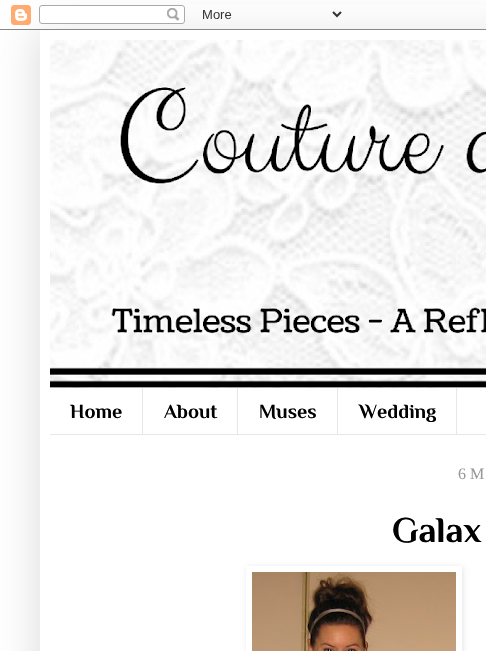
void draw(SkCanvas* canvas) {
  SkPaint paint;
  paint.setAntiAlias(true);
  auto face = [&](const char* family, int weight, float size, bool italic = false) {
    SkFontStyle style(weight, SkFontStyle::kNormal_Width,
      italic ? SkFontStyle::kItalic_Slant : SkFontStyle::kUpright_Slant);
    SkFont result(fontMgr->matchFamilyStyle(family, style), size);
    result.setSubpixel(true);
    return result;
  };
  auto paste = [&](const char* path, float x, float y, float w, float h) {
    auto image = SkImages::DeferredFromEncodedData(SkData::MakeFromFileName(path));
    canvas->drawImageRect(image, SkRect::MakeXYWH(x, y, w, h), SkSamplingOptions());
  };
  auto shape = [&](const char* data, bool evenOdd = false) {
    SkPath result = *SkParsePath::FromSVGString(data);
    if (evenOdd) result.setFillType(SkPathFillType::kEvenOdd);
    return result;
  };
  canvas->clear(0xffffffff);
  canvas->save();
  canvas->clipPath(shape("M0 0H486V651H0ZM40 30H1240V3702H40Z", true), true);
  paint.setColor(0x26000000);
  paint.setMaskFilter(SkMaskFilter::MakeBlur(kNormal_SkBlurStyle, 20));
  canvas->drawRect(SkRect::MakeXYWH(40, 30, 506, 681), paint);
  paint.setMaskFilter(nullptr);
  canvas->restore();
  paste("img/1.png", 0, 5, 486, 25);
  paste("img/2.png", 50, 40, 436, 348);
  {
    const struct { float x, y, w, h; SkColor color; } items[] = {
      {50, 434, 436, 1, 0xffe7e7e7},
      {142, 388, 1, 46, 0xffe7e7e7},
      {237, 388, 1, 46, 0xffe7e7e7},
      {337, 388, 1, 46, 0xffe7e7e7},
      {456, 388, 1, 46, 0xffe7e7e7},
    };
    for (auto [x, y, w, h, color] : items) {
      paint.setColor(color);
      canvas->drawRect(SkRect::MakeXYWH(x, y, w, h), paint);
    }
  }
  canvas->save();
  canvas->clipPath(shape("M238 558H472V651H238ZM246 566H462V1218H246Z", true), true);
  paint.setColor(0x1a000000);
  paint.setMaskFilter(SkMaskFilter::MakeBlur(kNormal_SkBlurStyle, 2.5f));
  canvas->drawRect(SkRect::MakeXYWH(247, 567, 216, 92), paint);
  paint.setMaskFilter(nullptr);
  canvas->restore();
  paste("img/3.png", 252, 572, 204, 79);
  auto f0 = face("Philosopher", 700, 20);
  paint.setColor(0xff000000);
  {
    const struct { const char* s; float x, y; } items[] = {
      {"Home", 70, 418},
      {"About", 164, 418},
      {"Muses", 259, 418},
      {"Wedding", 359, 418},
    };
    for (auto [s, x, y] : items) {
      canvas->drawString(s, x, y, f0, paint);
    }
  }
  auto f1 = face("Liberation Serif", 400, 16);
  paint.setColor(0xff999999);
  canvas->drawString("6 M", 458, 479, f1, paint);
  auto f2 = face("Philosopher", 700, 36);
  paint.setColor(0xff000000);
  canvas->drawString("Galax", 392, 542, f2, paint);
}
